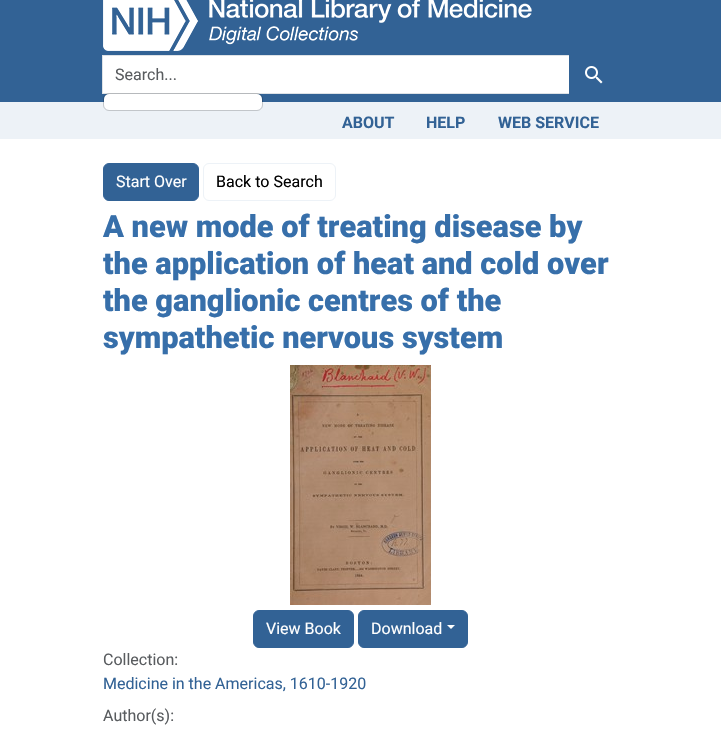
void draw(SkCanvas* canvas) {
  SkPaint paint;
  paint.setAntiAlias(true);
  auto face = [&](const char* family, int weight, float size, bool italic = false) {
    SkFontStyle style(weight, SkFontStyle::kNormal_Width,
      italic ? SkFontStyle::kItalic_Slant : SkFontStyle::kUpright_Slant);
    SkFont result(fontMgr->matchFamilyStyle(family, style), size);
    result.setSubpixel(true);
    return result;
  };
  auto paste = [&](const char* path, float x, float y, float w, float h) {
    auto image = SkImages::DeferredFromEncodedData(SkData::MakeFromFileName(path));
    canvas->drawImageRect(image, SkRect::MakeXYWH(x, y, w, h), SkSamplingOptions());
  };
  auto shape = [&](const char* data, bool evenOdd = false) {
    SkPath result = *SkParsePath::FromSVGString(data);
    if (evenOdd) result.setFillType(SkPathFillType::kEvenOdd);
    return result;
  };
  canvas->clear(0xffffffff);
  paint.setColor(0xff326295);
  canvas->drawRect(SkRect::MakeXYWH(0, 0, 721, 102), paint);
  paste("img/1.png", 103, 0, 429, 51);
  paint.setColor(0xffffffff);
  canvas->drawRect(SkRect::MakeXYWH(102.5f, 55.5f, 467, 38), paint);
  paint.setStroke(true);
  paint.setStrokeWidth(1);
  paint.setColor(0xffdee2e6);
  canvas->drawRect(SkRect::MakeXYWH(102.5f, 55.5f, 467, 38), paint);
  paint.setStroke(false);
  paint.setColor(0xffedf2f7);
  canvas->drawRect(SkRect::MakeXYWH(0, 102, 721, 37), paint);
  paint.setColor(0xffffffff);
  canvas->drawRoundRect(SkRect::MakeXYWH(104, 94, 158, 16), 5, 5, paint);
  paint.setStroke(true);
  paint.setColor(0x2e000000);
  canvas->drawRoundRect(SkRect::MakeXYWH(103.5f, 93.5f, 159, 17), 5.5f, 5.5f, paint);
  paint.setStroke(false);
  paint.setColor(0xff326295);
  canvas->drawPath(shape("M569 55H613C616.5 55 619 57.5 619 61V88C619 91.5 616.5 94 613 94H569Z"), paint);
  paste("img/2.png", 585, 66, 18, 18);
  canvas->drawRoundRect(SkRect::MakeXYWH(103.5f, 163.5f, 95, 37), 5.5f, 5.5f, paint);
  paint.setStroke(true);
  canvas->drawRoundRect(SkRect::MakeXYWH(103.5f, 163.5f, 95, 37), 5.5f, 5.5f, paint);
  paint.setColor(0xffedf2f7);
  canvas->drawRoundRect(SkRect::MakeXYWH(203.5f, 163.5f, 132, 37), 5.5f, 5.5f, paint);
  paste("img/3.png", 290, 365, 141, 240);
  paint.setStroke(false);
  paint.setColor(0xff326295);
  canvas->drawRoundRect(SkRect::MakeXYWH(253.5f, 610.5f, 100, 37), 5.5f, 5.5f, paint);
  paint.setStroke(true);
  canvas->drawRoundRect(SkRect::MakeXYWH(253.5f, 610.5f, 100, 37), 5.5f, 5.5f, paint);
  paint.setStroke(false);
  canvas->drawRoundRect(SkRect::MakeXYWH(358.5f, 610.5f, 109, 37), 5.5f, 5.5f, paint);
  paint.setStroke(true);
  canvas->drawRoundRect(SkRect::MakeXYWH(358.5f, 610.5f, 109, 37), 5.5f, 5.5f, paint);
  paint.setStroke(false);
  paint.setColor(0xffffffff);
  canvas->drawPath(shape("M447 625H455L451 629Z"), paint);
  auto f0 = face("Roboto", 400, 16);
  paint.setColor(0xff595c5f);
  canvas->drawString("Search...", 115, 80, f0, paint);
  auto f1 = face("Roboto", 700, 16);
  paint.setColor(0xff326295);
  {
    const struct { const char* s; float x, y; } items[] = {
      {"ABOUT", 342, 128},
      {"HELP", 426, 128},
      {"WEB SERVICE", 498, 128},
    };
    for (auto [s, x, y] : items) {
      canvas->drawString(s, x, y, f1, paint);
    }
  }
  paint.setColor(0xffffffff);
  canvas->drawString("Start Over", 116, 187, f0, paint);
  paint.setColor(0xff000000);
  canvas->drawString("Back to Search", 216, 187, f0, paint);
  auto f2 = face("Roboto", 900, 30.75f);
  paint.setColor(0xff376faa);
  {
    const struct { const char* s; float x, y; } items[] = {
      {"A new mode of treating disease by", 103, 237},
      {"the application of heat and cold over", 103, 274},
      {"the ganglionic centres of the", 103, 311},
      {"sympathetic nervous system", 103, 348},
    };
    for (auto [s, x, y] : items) {
      canvas->drawString(s, x, y, f2, paint);
    }
  }
  paint.setColor(0xffffffff);
  canvas->drawString("View Book", 266, 634, f0, paint);
  canvas->drawString("Download", 371, 634, f0, paint);
  paint.setColor(0xff595c5f);
  canvas->drawString("Collection:", 103, 665, f0, paint);
  paint.setColor(0xff326295);
  canvas->drawString("Medicine in the Americas, 1610-1920", 103, 689, f0, paint);
  paint.setColor(0xff595c5f);
  canvas->drawString("Author(s):", 103, 721, f0, paint);
}
